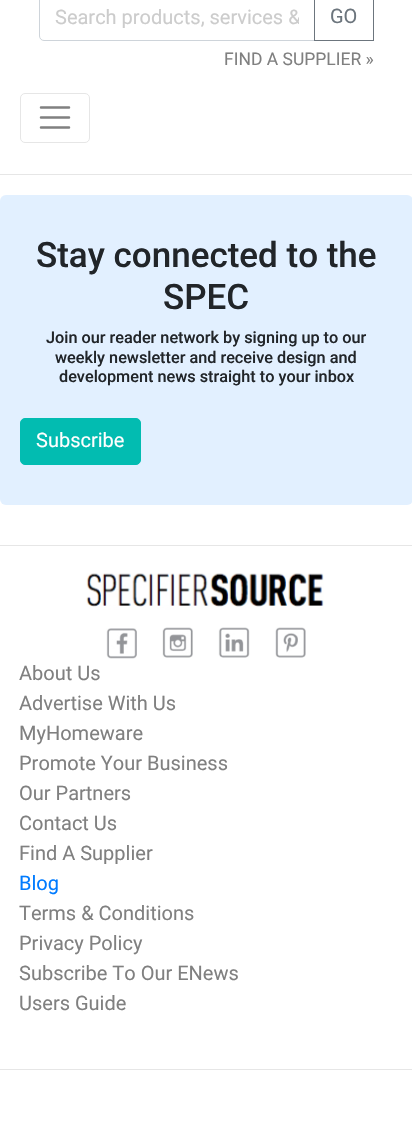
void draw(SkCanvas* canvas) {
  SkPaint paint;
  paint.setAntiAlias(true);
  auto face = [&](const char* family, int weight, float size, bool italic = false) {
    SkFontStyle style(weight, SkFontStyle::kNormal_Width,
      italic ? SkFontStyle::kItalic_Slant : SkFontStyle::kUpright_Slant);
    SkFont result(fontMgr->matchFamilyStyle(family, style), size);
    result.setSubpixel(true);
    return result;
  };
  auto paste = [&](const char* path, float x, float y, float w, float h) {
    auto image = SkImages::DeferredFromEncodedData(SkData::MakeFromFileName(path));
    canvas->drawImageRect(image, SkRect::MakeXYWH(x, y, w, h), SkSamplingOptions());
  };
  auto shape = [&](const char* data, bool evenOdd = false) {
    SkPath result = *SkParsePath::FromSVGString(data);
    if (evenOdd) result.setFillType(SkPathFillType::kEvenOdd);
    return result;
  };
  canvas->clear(0xffffffff);
  paint.setStroke(true);
  paint.setStrokeWidth(1);
  paint.setColor(0xffced4da);
  canvas->drawPath(shape("M44-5.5H314.5V40.5H44C41.5 40.5 39.5 38.5 39.5 36V-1C39.5-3.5 41.5-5.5 44-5.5Z"), paint);
  paint.setColor(0xff6c757d);
  canvas->drawRect(SkRect::MakeXYWH(314.5f, -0.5f, 59, 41), paint);
  paint.setColor(0xffe6e6e6);
  canvas->drawRoundRect(SkRect::MakeXYWH(20.5f, 93.5f, 69, 49), 4.5f, 4.5f, paint);
  paint.setStrokeWidth(2.5f);
  paint.setStrokeCap(SkPaint::kRound_Cap);
  paint.setColor(0xff808080);
  canvas->drawPath(shape("M41 107.5H69M41 117.5H69M41 127.5H69"), paint);
  paint.setStroke(false);
  paint.setColor(0xffe6e6e6);
  canvas->drawRect(SkRect::MakeXYWH(0, 174, 412, 1), paint);
  paint.setColor(0xffe2f0ff);
  canvas->drawRoundRect(SkRect::MakeXYWH(0, 195, 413, 310), 6, 6, paint);
  paint.setColor(0xff02bcb1);
  canvas->drawRoundRect(SkRect::MakeXYWH(20.5f, 418.5f, 120, 46), 4.5f, 4.5f, paint);
  paint.setStroke(true);
  paint.setStrokeWidth(1);
  paint.setStrokeCap(SkPaint::kButt_Cap);
  canvas->drawRoundRect(SkRect::MakeXYWH(20.5f, 418.5f, 120, 46), 4.5f, 4.5f, paint);
  paint.setStroke(false);
  paint.setColor(0xffe6e6e6);
  canvas->drawRect(SkRect::MakeXYWH(0, 545, 412, 1), paint);
  paste("img/1.png", 86, 573, 238, 37);
  paste("img/2.png", 106, 628, 31, 31);
  paste("img/3.png", 162, 627, 31, 31);
  paste("img/4.png", 218, 627, 32, 31);
  paste("img/5.png", 275, 627, 31, 31);
  canvas->drawRect(SkRect::MakeXYWH(0, 1069, 412, 1), paint);
  canvas->save();
  canvas->clipRect(SkRect::MakeXYWH(55, 5, 244, 24));
  auto f0 = face("Roboto", 400, 20);
  paint.setColor(0xffcccccc);
  canvas->drawString("Search products, services &", 55, 24, f0, paint);
  canvas->restore();
  paint.setColor(0xff6c757d);
  canvas->drawString("GO", 330, 23, f0, paint);
  auto f1 = face("Roboto", 400, 17.5f);
  paint.setColor(0xff808080);
  canvas->drawString("FIND A SUPPLIER »", 224, 65, f1, paint);
  auto f2 = face("Roboto", 500, 35);
  paint.setColor(0xff212529);
  canvas->drawString("Stay connected to the", 36, 267, f2, paint);
  canvas->drawString("SPEC", 163, 309, f2, paint);
  auto f3 = face("Roboto", 500, 16.25f);
  {
    const struct { const char* s; float x, y; } items[] = {
      {"Join our reader network by signing up to our", 46, 343},
      {"weekly newsletter and receive design and", 55, 363},
      {"development news straight to your inbox", 59, 382},
    };
    for (auto [s, x, y] : items) {
      canvas->drawString(s, x, y, f3, paint);
    }
  }
  paint.setColor(0xffffffff);
  canvas->drawString("Subscribe", 36, 447, f0, paint);
  paint.setColor(0xff808080);
  {
    const struct { const char* s; float x, y; } items[] = {
      {"About Us", 19, 680},
      {"Advertise With Us", 19, 710},
      {"MyHomeware", 19, 740},
      {"Promote Your Business", 19, 770},
      {"Our Partners", 19, 800},
      {"Contact Us", 19, 830},
      {"Find A Supplier", 19, 860},
    };
    for (auto [s, x, y] : items) {
      canvas->drawString(s, x, y, f0, paint);
    }
  }
  paint.setColor(0xff007bff);
  canvas->drawString("Blog", 19, 890, f0, paint);
  paint.setColor(0xff808080);
  {
    const struct { const char* s; float x, y; } items[] = {
      {"Terms & Conditions", 19, 920},
      {"Privacy Policy", 19, 950},
      {"Subscribe To Our ENews", 19, 980},
      {"Users Guide", 19, 1010},
    };
    for (auto [s, x, y] : items) {
      canvas->drawString(s, x, y, f0, paint);
    }
  }
}
